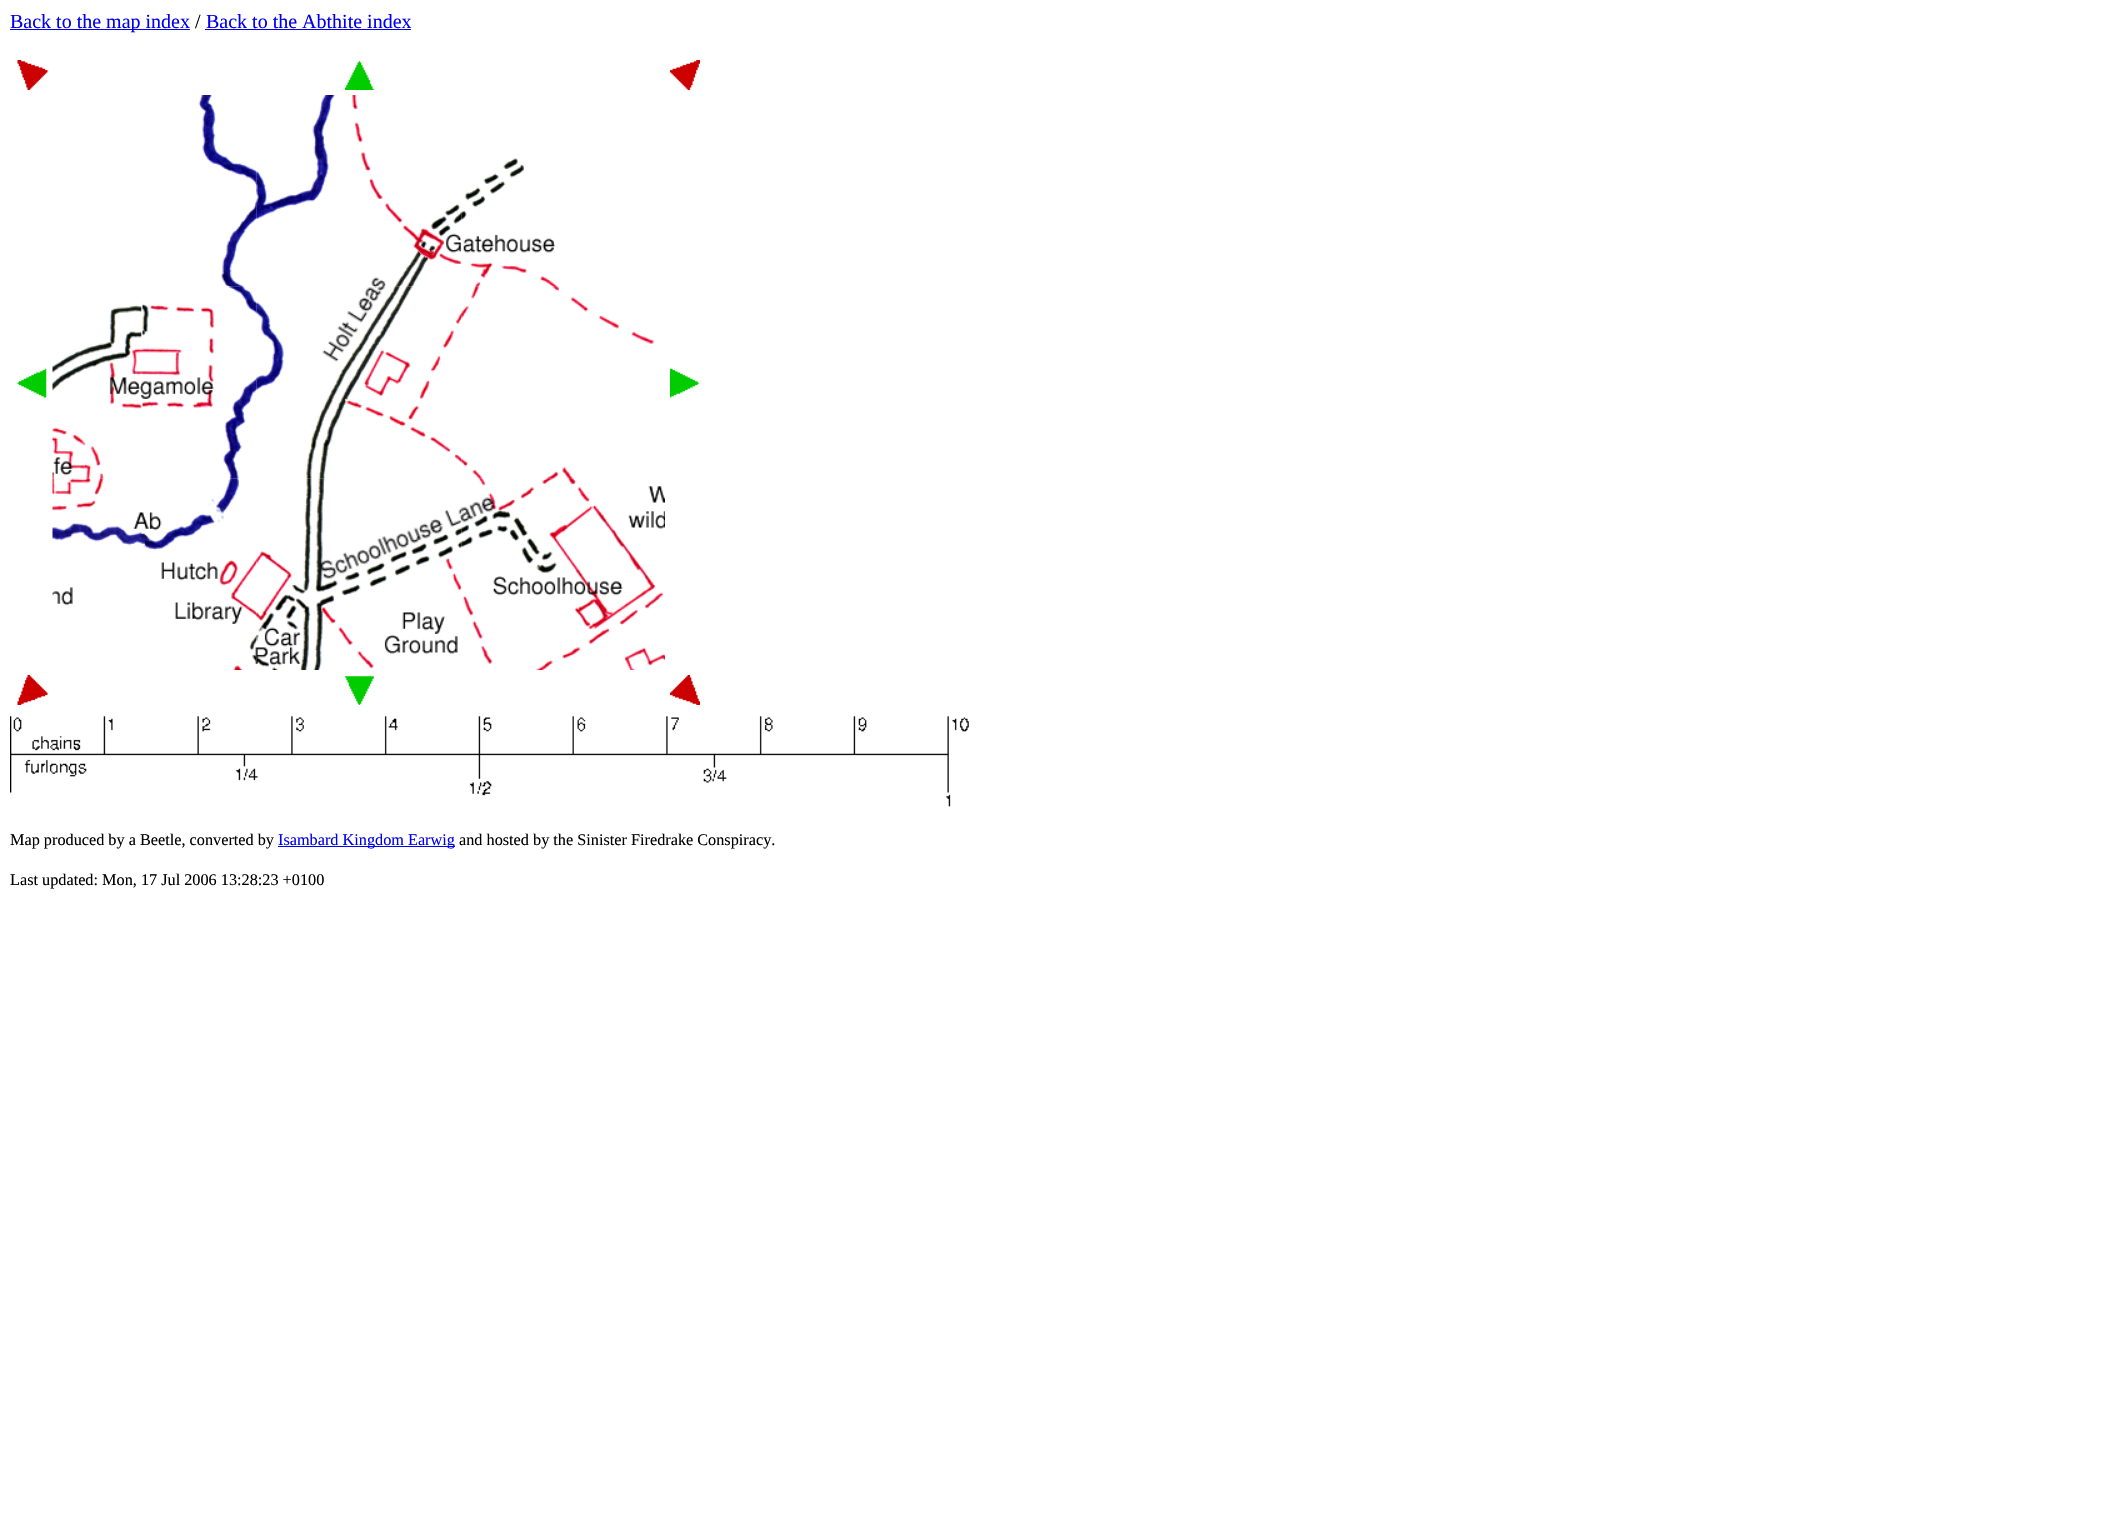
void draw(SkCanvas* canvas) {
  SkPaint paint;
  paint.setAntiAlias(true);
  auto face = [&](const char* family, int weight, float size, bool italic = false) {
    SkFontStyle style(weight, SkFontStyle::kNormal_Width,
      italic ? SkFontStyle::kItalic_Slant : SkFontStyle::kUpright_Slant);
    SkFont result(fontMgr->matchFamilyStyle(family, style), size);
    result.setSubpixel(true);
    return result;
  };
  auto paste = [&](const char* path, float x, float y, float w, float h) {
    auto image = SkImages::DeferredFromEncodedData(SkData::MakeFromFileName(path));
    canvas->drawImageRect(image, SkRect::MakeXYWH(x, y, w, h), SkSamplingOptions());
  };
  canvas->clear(0xffffffff);
  paint.setColor(0xff0000ee);
  canvas->drawRect(SkRect::MakeXYWH(10, 29, 180, 1), paint);
  canvas->drawRect(SkRect::MakeXYWH(205, 29, 206, 1), paint);
  paste("img/1.png", 17, 60, 31, 30);
  paste("img/2.png", 345, 61, 29, 29);
  paste("img/3.png", 670, 60, 30, 30);
  paste("img/4.png", 17, 368, 30, 30);
  paste("img/5.png", 198, 95, 59, 192);
  paste("img/6.png", 256, 95, 206, 192);
  paste("img/7.png", 461, 158, 96, 129);
  paste("img/8.png", 52, 286, 205, 193);
  paste("img/9.png", 256, 286, 206, 193);
  paste("img/10.png", 461, 286, 193, 193);
  paste("img/11.png", 52, 478, 205, 192);
  paste("img/12.png", 256, 478, 206, 192);
  paste("img/13.png", 461, 478, 204, 192);
  paste("img/14.png", 670, 368, 29, 30);
  paste("img/15.png", 17, 675, 31, 30);
  paste("img/16.png", 345, 676, 29, 29);
  paste("img/17.png", 670, 675, 30, 30);
  paste("img/18.png", 10, 716, 959, 91);
  canvas->drawRect(SkRect::MakeXYWH(278, 846, 177, 1), paint);
  auto f0 = face("Liberation Serif", 400, 20);
  canvas->drawString("Back to the map index", 10, 28, f0, paint);
  paint.setColor(0xff000000);
  canvas->drawString("/", 195, 28, f0, paint);
  paint.setColor(0xff0000ee);
  canvas->drawString("Back to the Abthite index", 206, 28, f0, paint);
  auto f1 = face("Liberation Serif", 400, 16.25f);
  paint.setColor(0xff000000);
  canvas->drawString("Map produced by a Beetle, converted by", 10, 845, f1, paint);
  paint.setColor(0xff0000ee);
  canvas->drawString("Isambard Kingdom Earwig", 278, 845, f1, paint);
  paint.setColor(0xff000000);
  canvas->drawString("and hosted by the Sinister Firedrake Conspiracy.", 459, 845, f1, paint);
  canvas->drawString("Last updated: Mon, 17 Jul 2006 13:28:23 +0100", 10, 885, f1, paint);
}
